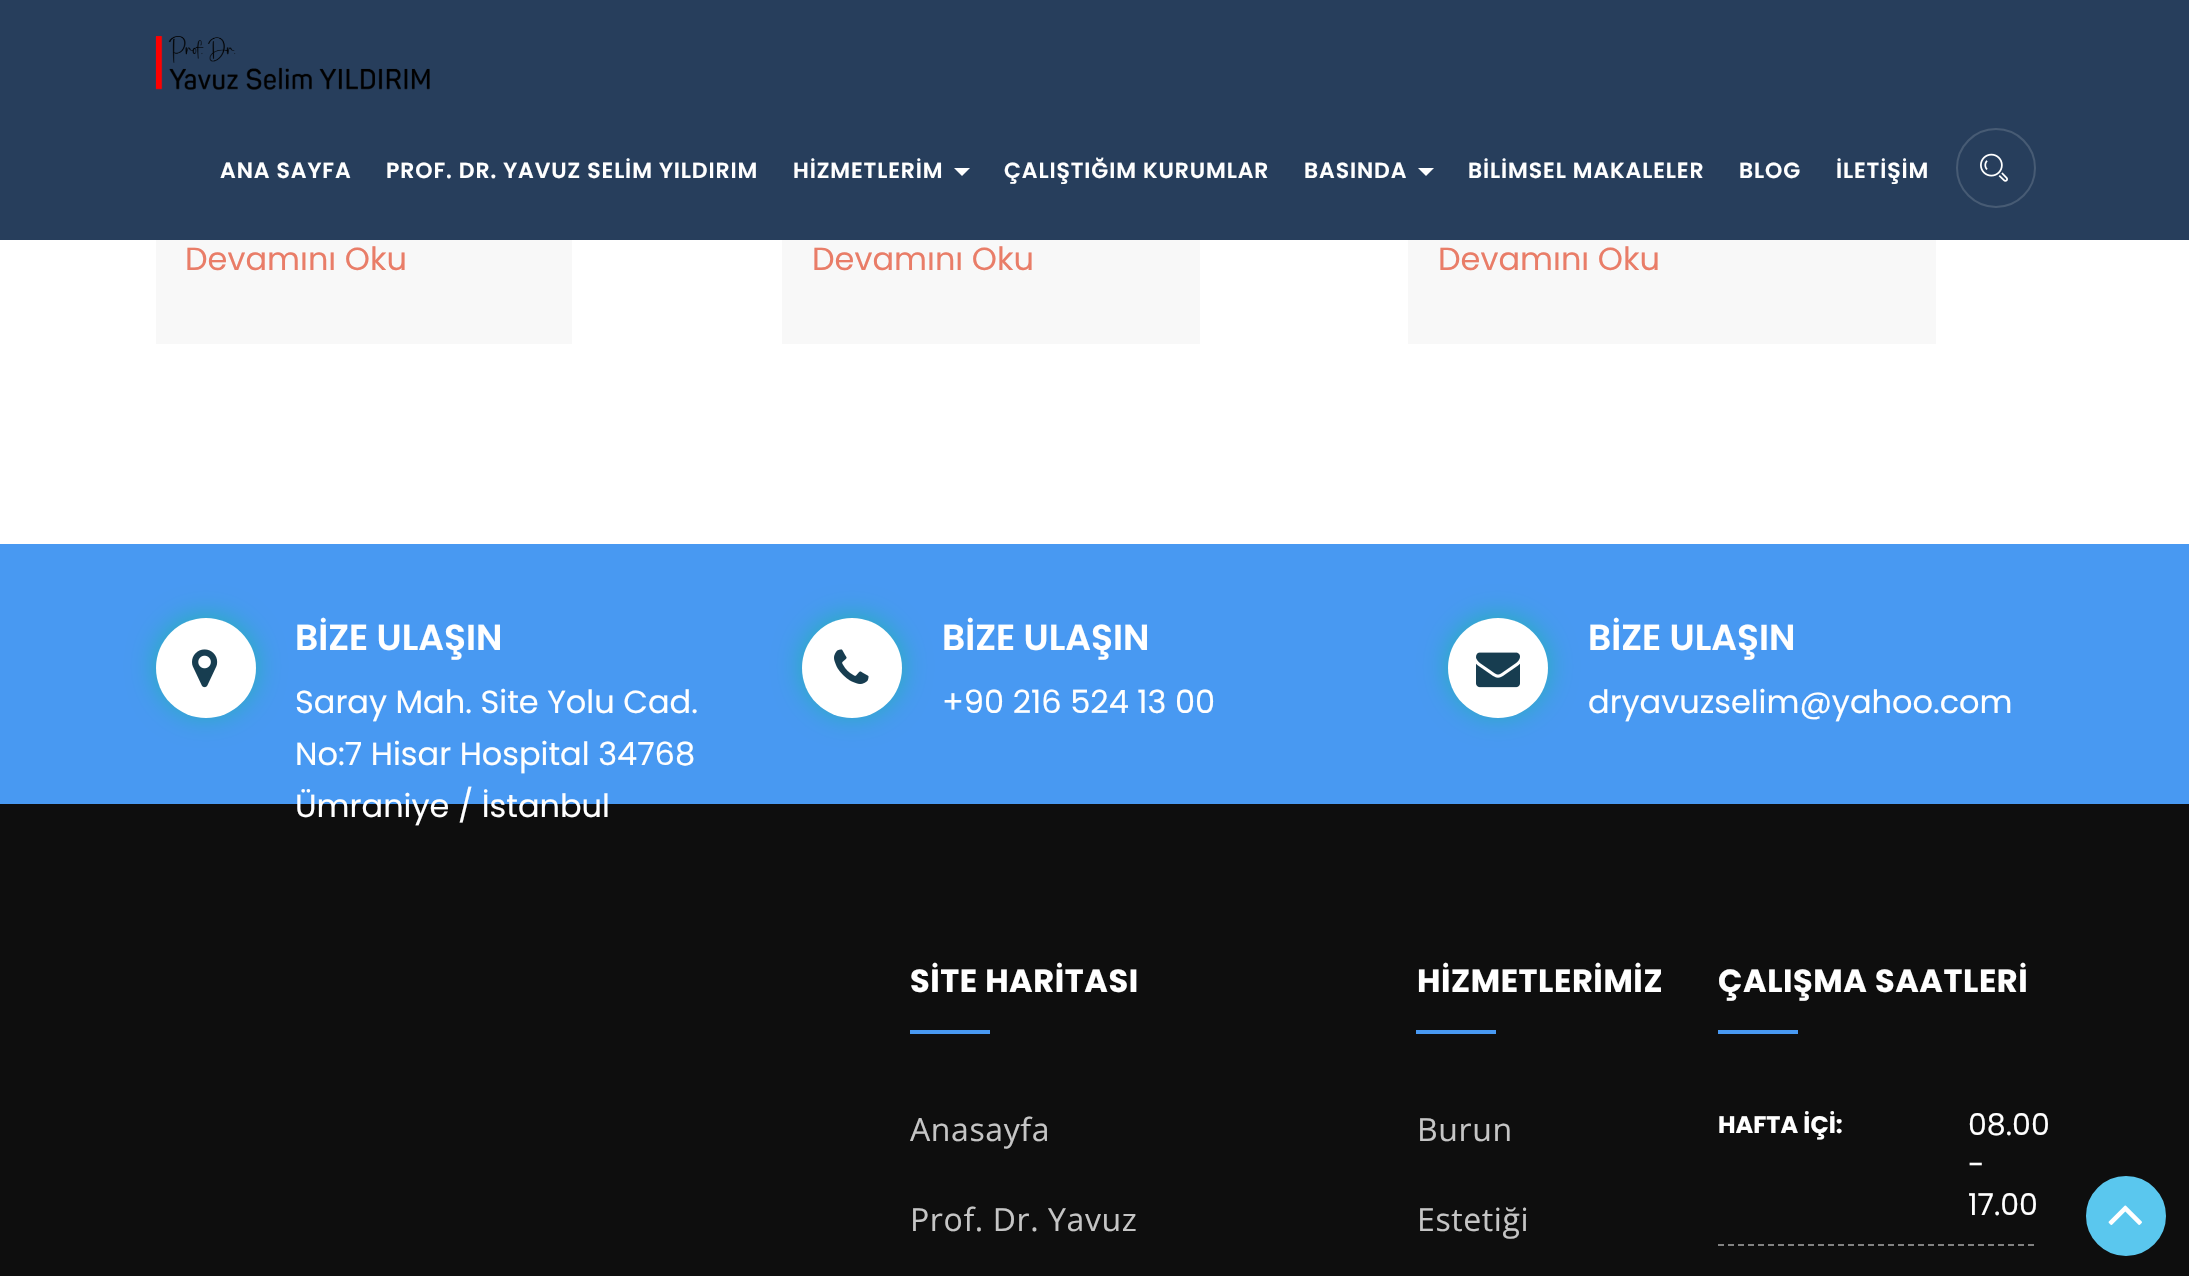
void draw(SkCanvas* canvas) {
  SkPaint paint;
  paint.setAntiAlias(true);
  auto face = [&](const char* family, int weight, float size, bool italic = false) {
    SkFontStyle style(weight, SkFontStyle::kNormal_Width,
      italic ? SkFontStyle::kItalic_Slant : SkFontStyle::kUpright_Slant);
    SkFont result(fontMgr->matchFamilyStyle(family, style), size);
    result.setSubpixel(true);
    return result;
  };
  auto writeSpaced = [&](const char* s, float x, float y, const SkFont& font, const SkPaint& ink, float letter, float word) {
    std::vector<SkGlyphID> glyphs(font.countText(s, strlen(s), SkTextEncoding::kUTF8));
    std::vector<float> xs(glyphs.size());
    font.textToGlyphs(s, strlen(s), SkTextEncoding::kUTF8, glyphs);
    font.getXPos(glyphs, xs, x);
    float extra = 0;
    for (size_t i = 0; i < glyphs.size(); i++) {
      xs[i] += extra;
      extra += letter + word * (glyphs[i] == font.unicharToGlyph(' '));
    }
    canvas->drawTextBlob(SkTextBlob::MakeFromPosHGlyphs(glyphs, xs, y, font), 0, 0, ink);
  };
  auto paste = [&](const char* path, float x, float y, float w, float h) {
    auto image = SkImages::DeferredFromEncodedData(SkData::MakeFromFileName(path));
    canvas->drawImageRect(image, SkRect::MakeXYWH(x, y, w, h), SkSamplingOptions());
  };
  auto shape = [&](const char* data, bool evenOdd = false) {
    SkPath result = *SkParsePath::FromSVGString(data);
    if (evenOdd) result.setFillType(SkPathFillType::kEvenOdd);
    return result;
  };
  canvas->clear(0xffffffff);
  paint.setColor(0xff273e5c);
  canvas->drawRect(SkRect::MakeXYWH(0, 0, 2189, 240), paint);
  paste("img/1.png", 155, 36, 275, 54);
  paint.setColor(0xffffffff);
  canvas->drawPath(shape("M954 168H970L962 176Z"), paint);
  canvas->drawPath(shape("M1418 168H1434L1426 176Z"), paint);
  paste("img/2.png", 1980, 153, 28, 29);
  paint.setStroke(true);
  paint.setStrokeWidth(2);
  paint.setColor(0xff475b74);
  canvas->drawCircle(1996, 168, 39, paint);
  paint.setStroke(false);
  {
    const struct { float x, y, w, h; SkColor color; } items[] = {
      {156, 240, 416, 104, 0xfff8f8f8},
      {782, 240, 418, 104, 0xfff8f8f8},
      {1408, 240, 528, 104, 0xfff8f8f8},
      {0, 544, 2189, 260, 0xff4899f2},
    };
    for (auto [x, y, w, h, color] : items) {
      paint.setColor(color);
      canvas->drawRect(SkRect::MakeXYWH(x, y, w, h), paint);
    }
  }
  paint.setColor(0xff22b1b6);
  paint.setMaskFilter(SkMaskFilter::MakeBlur(kNormal_SkBlurStyle, 14));
  canvas->drawRoundRect(SkRect::MakeXYWH(156, 616, 100, 100), 50, 50, paint);
  paint.setMaskFilter(nullptr);
  paint.setColor(0xffffffff);
  canvas->drawCircle(206, 668, 50, paint);
  paste("img/3.png", 192, 649, 26, 39);
  paint.setColor(0xff22b1b6);
  paint.setMaskFilter(SkMaskFilter::MakeBlur(kNormal_SkBlurStyle, 14));
  canvas->drawRoundRect(SkRect::MakeXYWH(802, 616, 100, 100), 50, 50, paint);
  paint.setMaskFilter(nullptr);
  paint.setColor(0xffffffff);
  canvas->drawCircle(852, 668, 50, paint);
  paste("img/4.png", 834, 649, 35, 35);
  paint.setColor(0xff22b1b6);
  paint.setMaskFilter(SkMaskFilter::MakeBlur(kNormal_SkBlurStyle, 14));
  canvas->drawRoundRect(SkRect::MakeXYWH(1448, 616, 100, 100), 50, 50, paint);
  paint.setMaskFilter(nullptr);
  paint.setColor(0xffffffff);
  canvas->drawCircle(1498, 668, 50, paint);
  paste("img/5.png", 1476, 652, 44, 36);
  {
    const struct { float x, y, w, h; SkColor color; } items[] = {
      {0, 804, 2189, 472, 0xff0e0e0e},
      {910, 1030, 80, 4, 0xff4899f2},
      {1416, 1030, 80, 4, 0xff4899f2},
      {1718, 1030, 80, 4, 0xff4899f2},
    };
    for (auto [x, y, w, h, color] : items) {
      paint.setColor(color);
      canvas->drawRect(SkRect::MakeXYWH(x, y, w, h), paint);
    }
  }
  paint.setStroke(true);
  paint.setColor(0xff818181);
  paint.setPathEffect(SkDashPathEffect::Make({{6, 4}}, 0));
  canvas->drawPath(shape("M1718 1245H2034"), paint);
  paint.setPathEffect(nullptr);
  paint.setStroke(false);
  paint.setColor(0xff5ac7ee);
  canvas->drawCircle(2126, 1216, 38, paint);
  paint.setStroke(true);
  paint.setStrokeWidth(4);
  canvas->drawCircle(2126, 1216, 38, paint);
  paste("img/6.png", 2108, 1205, 34, 20);
  auto f0 = face("Poppins", 600, 22);
  paint.setStroke(false);
  paint.setColor(0xffffffff);
  {
    const struct { const char* s; float x, y; } items[] = {
      {"ANA SAYFA", 220, 178},
      {"PROF. DR. YAVUZ SELİM YILDIRIM", 386, 178},
      {"HİZMETLERİM", 793, 178},
      {"ÇALIŞTIĞIM KURUMLAR", 1004, 178},
      {"BASINDA", 1304, 178},
      {"BİLİMSEL MAKALELER", 1468, 178},
      {"BLOG", 1739, 178},
      {"İLETİŞİM", 1836, 178},
    };
    for (auto [s, x, y] : items) {
      writeSpaced(s, x, y, f0, paint, 0.9f, 0);
    }
  }
  auto f1 = face("Poppins", 400, 32);
  paint.setColor(0xffe97d68);
  {
    const struct { const char* s; float x, y; } items[] = {
      {"Devamını Oku", 185, 270},
      {"Devamını Oku", 812, 270},
      {"Devamını Oku", 1438, 270},
    };
    for (auto [s, x, y] : items) {
      canvas->drawString(s, x, y, f1, paint);
    }
  }
  auto f2 = face("Poppins", 600, 36);
  paint.setColor(0xffffffff);
  canvas->drawString("BİZE ULAŞIN", 295, 650, f2, paint);
  {
    const struct { const char* s; float x, y; } items[] = {
      {"Saray Mah. Site Yolu Cad.", 295, 713},
      {"No:7 Hisar Hospital 34768", 295, 765},
      {"Ümraniye / İstanbul", 295, 817},
    };
    for (auto [s, x, y] : items) {
      canvas->drawString(s, x, y, f1, paint);
    }
  }
  canvas->drawString("BİZE ULAŞIN", 942, 650, f2, paint);
  canvas->drawString("+90 216 524 13 00", 942, 713, f1, paint);
  canvas->drawString("BİZE ULAŞIN", 1588, 650, f2, paint);
  canvas->drawString("dryavuzselim@yahoo.com", 1588, 713, f1, paint);
  auto f3 = face("Poppins", 700, 32);
  writeSpaced("SİTE HARİTASI", 910, 992, f3, paint, 0.6f, 0);
  auto f4 = face("Open Sans", 400, 32);
  paint.setColor(0xffc5c5c5);
  writeSpaced("Anasayfa", 910, 1141, f4, paint, 0.6f, 0);
  writeSpaced("Prof. Dr. Yavuz", 910, 1231, f4, paint, 0.6f, 0);
  paint.setColor(0xffffffff);
  writeSpaced("HİZMETLERİMİZ", 1417, 992, f3, paint, 0.6f, 0);
  paint.setColor(0xffc5c5c5);
  writeSpaced("Burun", 1417, 1141, f4, paint, 0.6f, 0);
  writeSpaced("Estetiği", 1417, 1231, f4, paint, 0.6f, 0);
  paint.setColor(0xffffffff);
  writeSpaced("ÇALIŞMA SAATLERİ", 1718, 992, f3, paint, 0.6f, 0);
  auto f5 = face("Poppins", 700, 24);
  canvas->drawString("HAFTA İÇİ:", 1718, 1133, f5, paint);
  auto f6 = face("Poppins", 400, 30);
  {
    const struct { const char* s; float x, y; } items[] = {
      {"08.00", 1968, 1135},
      {"-", 1968, 1175},
      {"17.00", 1968, 1215},
    };
    for (auto [s, x, y] : items) {
      canvas->drawString(s, x, y, f6, paint);
    }
  }
}
